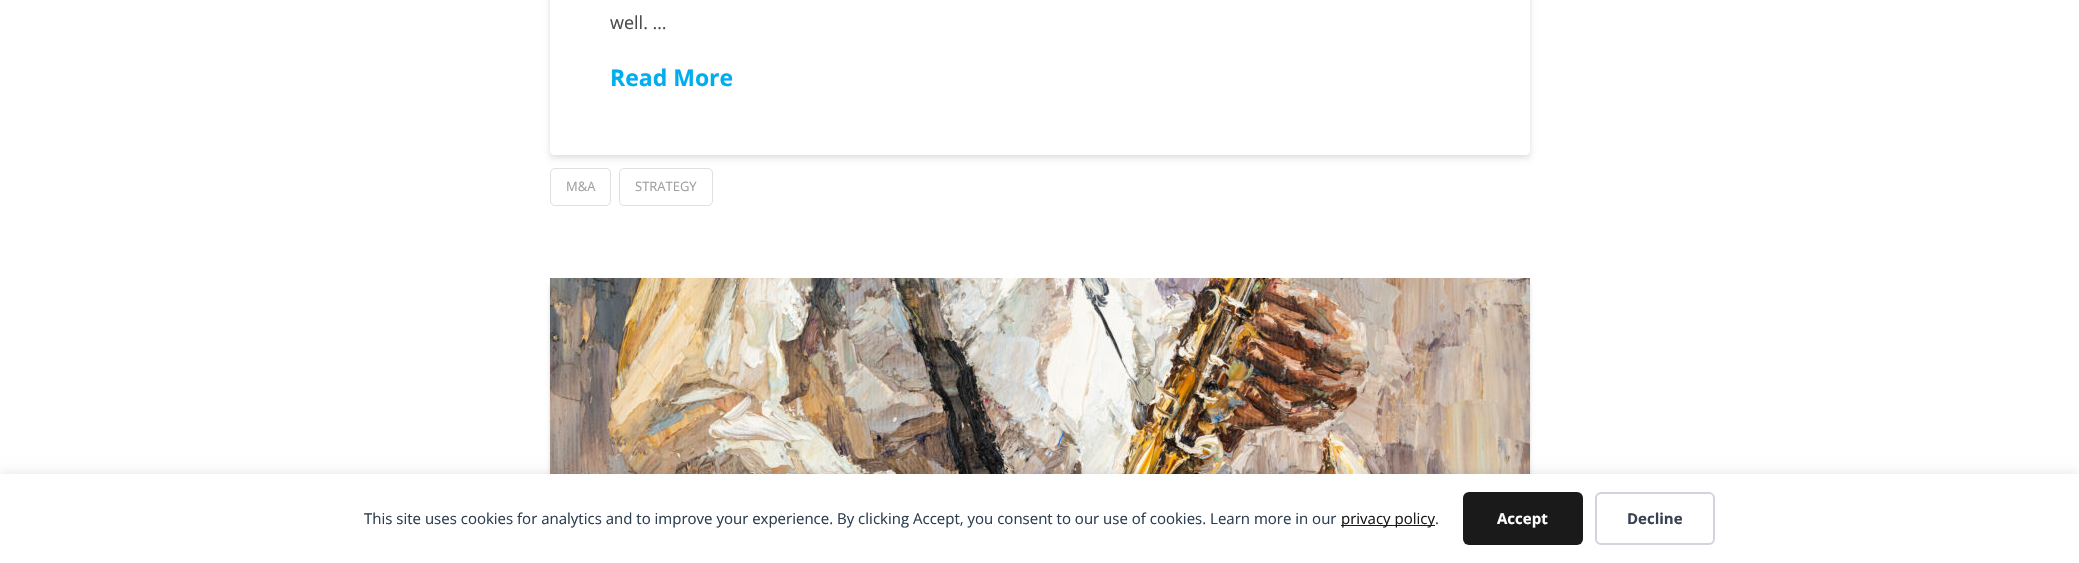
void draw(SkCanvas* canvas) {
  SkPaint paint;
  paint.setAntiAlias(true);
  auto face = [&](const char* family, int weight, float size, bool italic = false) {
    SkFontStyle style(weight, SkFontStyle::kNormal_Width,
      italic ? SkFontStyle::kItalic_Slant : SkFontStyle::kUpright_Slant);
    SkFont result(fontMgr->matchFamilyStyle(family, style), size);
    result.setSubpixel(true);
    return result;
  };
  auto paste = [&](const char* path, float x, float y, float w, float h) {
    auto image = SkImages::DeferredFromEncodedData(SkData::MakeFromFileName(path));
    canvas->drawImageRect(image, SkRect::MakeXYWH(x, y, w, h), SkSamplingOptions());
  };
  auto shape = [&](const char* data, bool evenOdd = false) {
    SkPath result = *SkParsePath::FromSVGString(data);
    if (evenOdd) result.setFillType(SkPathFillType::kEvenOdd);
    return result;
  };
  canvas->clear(0xffffffff);
  paint.setColor(0x21000000);
  paint.setMaskFilter(SkMaskFilter::MakeBlur(kNormal_SkBlurStyle, 3));
  canvas->drawRoundRect(SkRect::MakeXYWH(550, -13, 980, 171), 4, 4, paint);
  paint.setMaskFilter(nullptr);
  paint.setColor(0xffffffff);
  canvas->drawPath(shape("M550-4H1530V151C1530 153 1528 155 1526 155H554C552 155 550 153 550 151Z"), paint);
  paint.setStroke(true);
  paint.setStrokeWidth(1);
  paint.setColor(0xffdfdfdf);
  canvas->drawRoundRect(SkRect::MakeXYWH(550.5f, 168.5f, 60, 37), 4.5f, 4.5f, paint);
  canvas->drawRoundRect(SkRect::MakeXYWH(619.5f, 168.5f, 93, 37), 4.5f, 4.5f, paint);
  paint.setStroke(false);
  paint.setColor(0x21000000);
  paint.setMaskFilter(SkMaskFilter::MakeBlur(kNormal_SkBlurStyle, 2));
  canvas->drawRect(SkRect::MakeXYWH(550, 284, 972, 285), paint);
  paint.setMaskFilter(nullptr);
  paint.setMaskFilter(SkMaskFilter::MakeBlur(kNormal_SkBlurStyle, 2));
  canvas->drawRect(SkRect::MakeXYWH(558, 284, 972, 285), paint);
  paint.setMaskFilter(nullptr);
  paste("img/1.png", 550, 278, 980, 196);
  paint.setColor(0x14000000);
  paint.setMaskFilter(SkMaskFilter::MakeBlur(kNormal_SkBlurStyle, 5));
  canvas->drawRect(SkRect::MakeXYWH(0, 472, 2079, 89), paint);
  paint.setMaskFilter(nullptr);
  paint.setColor(0xffffffff);
  canvas->drawRect(SkRect::MakeXYWH(0, 474, 2079, 89), paint);
  paint.setColor(0xff1a1a1a);
  canvas->drawRect(SkRect::MakeXYWH(1341, 525, 94, 1), paint);
  canvas->drawRoundRect(SkRect::MakeXYWH(1463, 492, 120, 53), 6, 6, paint);
  paint.setStroke(true);
  paint.setStrokeWidth(2);
  paint.setColor(0xffd1d5db);
  canvas->drawRoundRect(SkRect::MakeXYWH(1596, 493, 118, 51), 5, 5, paint);
  auto f0 = face("Open Sans", 400, 18);
  paint.setStroke(false);
  paint.setColor(0xff4a4a4a);
  canvas->drawString("well. …", 610, 29, f0, paint);
  auto f1 = face("Open Sans", 700, 23);
  paint.setColor(0xff00adef);
  canvas->drawString("Read More", 610, 86, f1, paint);
  auto f2 = face("Open Sans", 400, 13);
  paint.setColor(0xff9f9f9f);
  canvas->drawString("M&A", 566, 191, f2, paint);
  canvas->drawString("STRATEGY", 635, 191, f2, paint);
  auto f3 = face("Open Sans", 400, 15);
  paint.setColor(0xff2c3e50);
  canvas->drawString("This site uses cookies for analytics and to improve your experience. By clicking Accept, you consent to our use of cookies. Learn more in our", 364, 524, f3, paint);
  paint.setColor(0xff1a1a1a);
  canvas->drawString("privacy policy", 1341, 524, f3, paint);
  paint.setColor(0xff2c3e50);
  canvas->drawString(".", 1435, 524, f3, paint);
  auto f4 = face("Open Sans", 700, 15);
  paint.setColor(0xffffffff);
  canvas->drawString("Accept", 1497, 524, f4, paint);
  paint.setColor(0xff374151);
  canvas->drawString("Decline", 1627, 524, f4, paint);
}
